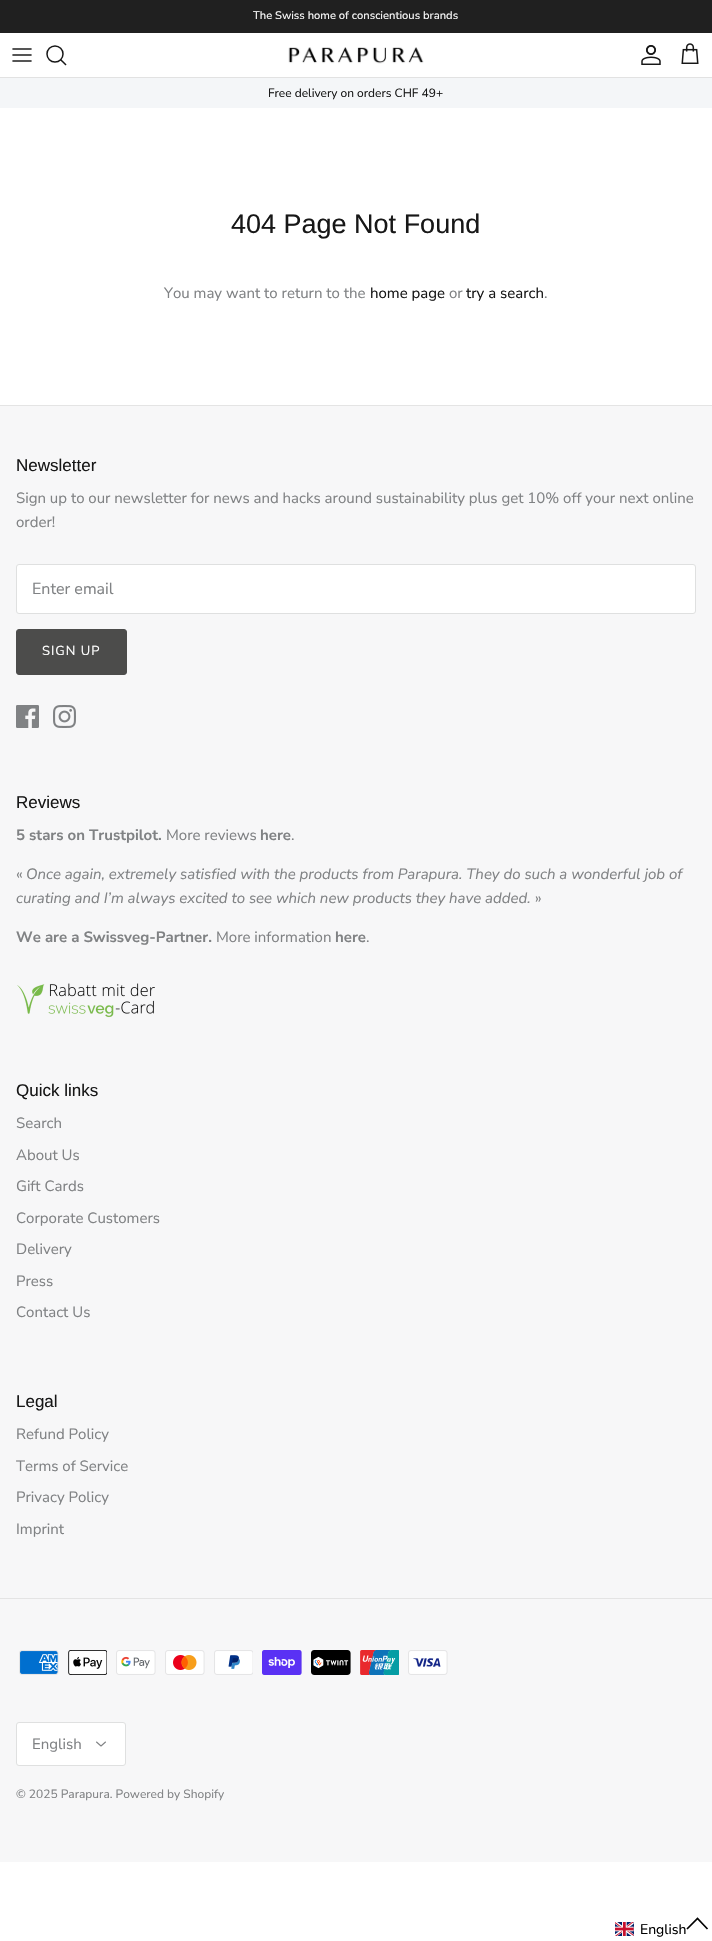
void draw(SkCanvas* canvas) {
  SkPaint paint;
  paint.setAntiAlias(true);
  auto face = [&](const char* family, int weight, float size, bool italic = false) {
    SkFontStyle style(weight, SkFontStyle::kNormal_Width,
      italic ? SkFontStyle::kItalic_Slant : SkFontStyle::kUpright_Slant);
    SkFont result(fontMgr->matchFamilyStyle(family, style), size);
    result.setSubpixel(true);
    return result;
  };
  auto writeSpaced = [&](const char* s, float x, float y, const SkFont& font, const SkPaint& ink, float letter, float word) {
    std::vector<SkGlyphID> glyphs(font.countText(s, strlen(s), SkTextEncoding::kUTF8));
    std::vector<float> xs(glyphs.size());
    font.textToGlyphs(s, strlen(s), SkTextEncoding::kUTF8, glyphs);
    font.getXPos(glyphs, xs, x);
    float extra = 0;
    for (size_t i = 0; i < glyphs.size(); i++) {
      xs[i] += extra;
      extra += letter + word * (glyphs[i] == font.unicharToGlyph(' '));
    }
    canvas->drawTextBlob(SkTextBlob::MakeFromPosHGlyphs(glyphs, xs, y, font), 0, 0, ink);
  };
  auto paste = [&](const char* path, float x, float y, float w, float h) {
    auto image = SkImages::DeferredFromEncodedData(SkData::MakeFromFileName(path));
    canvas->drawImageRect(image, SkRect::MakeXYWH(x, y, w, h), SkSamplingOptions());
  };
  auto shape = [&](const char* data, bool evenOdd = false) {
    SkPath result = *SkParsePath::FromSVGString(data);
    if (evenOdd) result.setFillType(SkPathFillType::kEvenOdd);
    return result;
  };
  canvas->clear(0xffffffff);
  paint.setColor(0xff202020);
  canvas->drawRect(SkRect::MakeXYWH(0, 0, 712, 33), paint);
  paint.setColor(0xffe2e2e2);
  canvas->drawRect(SkRect::MakeXYWH(0, 77, 712, 1), paint);
  paste("img/1.png", 12, 48, 20, 14);
  paint.setStroke(true);
  paint.setStrokeWidth(1.5f);
  paint.setColor(0xff171717);
  canvas->drawCircle(55, 54, 8, paint);
  paint.setStrokeCap(SkPaint::kSquare_Cap);
  canvas->drawPath(shape("M61 60L65.5 64.5"), paint);
  paste("img/2.png", 288, 47, 136, 17);
  paste("img/3.png", 641, 45, 20, 20);
  paste("img/4.png", 681, 43, 18, 21);
  paint.setStroke(false);
  {
    const struct { float x, y, w, h; SkColor color; } items[] = {
      {0, 78, 712, 30, 0xfff4f6f8},
      {0, 406, 712, 1456, 0xfff7f7f8},
      {0, 405, 712, 1, 0xffe4e4e4},
    };
    for (auto [x, y, w, h, color] : items) {
      paint.setColor(color);
      canvas->drawRect(SkRect::MakeXYWH(x, y, w, h), paint);
    }
  }
  paint.setColor(0xffffffff);
  canvas->drawRoundRect(SkRect::MakeXYWH(16.5f, 564.5f, 679, 49), 2.5f, 2.5f, paint);
  paint.setStroke(true);
  paint.setStrokeWidth(1);
  paint.setStrokeCap(SkPaint::kButt_Cap);
  paint.setColor(0xffdfe0e0);
  canvas->drawRoundRect(SkRect::MakeXYWH(16.5f, 564.5f, 679, 49), 2.5f, 2.5f, paint);
  paint.setStroke(false);
  paint.setColor(0xff4c4c4b);
  canvas->drawRoundRect(SkRect::MakeXYWH(16.5f, 629.5f, 110, 45), 2.5f, 2.5f, paint);
  paint.setStroke(true);
  canvas->drawRoundRect(SkRect::MakeXYWH(16.5f, 629.5f, 110, 45), 2.5f, 2.5f, paint);
  paste("img/5.png", 16, 705, 23, 23);
  paste("img/6.png", 53, 705, 23, 23);
  paste("img/7.png", 17, 983, 138, 35);
  paint.setStroke(false);
  paint.setColor(0xffe4e4e4);
  canvas->drawRect(SkRect::MakeXYWH(0, 1598, 712, 1), paint);
  paste("img/8.png", 19, 1650, 40, 25);
  paste("img/9.png", 68, 1650, 39, 25);
  paste("img/10.png", 116, 1650, 40, 25);
  paste("img/11.png", 165, 1650, 40, 25);
  paste("img/12.png", 214, 1650, 39, 25);
  paste("img/13.png", 262, 1650, 40, 25);
  paste("img/14.png", 311, 1650, 40, 25);
  paste("img/15.png", 360, 1650, 39, 25);
  paste("img/16.png", 408, 1650, 40, 25);
  paint.setColor(0xffffffff);
  canvas->drawRoundRect(SkRect::MakeXYWH(16.5f, 1722.5f, 109, 43), 2.5f, 2.5f, paint);
  paint.setStroke(true);
  paint.setColor(0xffdfe0e0);
  canvas->drawRoundRect(SkRect::MakeXYWH(16.5f, 1722.5f, 109, 43), 2.5f, 2.5f, paint);
  paint.setStrokeWidth(1.1f);
  paint.setStrokeCap(SkPaint::kRound_Cap);
  paint.setStrokeJoin(SkPaint::kRound_Join);
  paint.setColor(0xff808284);
  canvas->drawPath(shape("M96.5 1742L101 1746L105.5 1742"), paint);
  paste("img/17.png", 615, 1922, 19, 14);
  paint.setStrokeWidth(1.7f);
  paint.setStrokeCap(SkPaint::kButt_Cap);
  paint.setStrokeJoin(SkPaint::kMiter_Join);
  paint.setColor(0xff000000);
  canvas->drawPath(shape("M707.5 1929L697.5 1918.5L687 1929"), paint);
  auto f0 = face("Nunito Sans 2", 400, 11);
  paint.setStroke(false);
  paint.setColor(0xffffffff);
  canvas->drawString("The Swiss home of conscientious brands", 253, 19, f0, paint);
  auto f1 = face("Nunito Sans", 400, 12);
  paint.setColor(0xff171717);
  canvas->drawString("Free delivery on orders CHF 49+", 268, 97, f1, paint);
  auto f2 = face("Arimo", 400, 27);
  canvas->drawString("404 Page Not Found", 231, 233, f2, paint);
  auto f3 = face("Nunito Sans", 400, 15);
  paint.setColor(0xff808284);
  canvas->drawString("You may want to return to the", 164, 298, f3, paint);
  paint.setColor(0xff171717);
  canvas->drawString("home page", 370, 298, f3, paint);
  paint.setColor(0xff808284);
  canvas->drawString("or", 449, 298, f3, paint);
  paint.setColor(0xff171717);
  canvas->drawString("try a search", 466, 298, f3, paint);
  paint.setColor(0xff808284);
  canvas->drawString(".", 544, 298, f3, paint);
  auto f4 = face("Arimo", 400, 17);
  paint.setColor(0xff171717);
  canvas->drawString("Newsletter", 16, 471, f4, paint);
  paint.setColor(0xff808284);
  canvas->drawString("Sign up to our newsletter for news and hacks around sustainability plus get 10% off your next online", 16, 503, f3, paint);
  canvas->drawString("order!", 16, 527, f3, paint);
  auto f5 = face("Nunito Sans", 400, 16);
  canvas->drawString("Enter email", 32, 594, f5, paint);
  auto f6 = face("Nunito Sans", 400, 13);
  paint.setColor(0xffffffff);
  writeSpaced("SIGN UP", 42, 655, f6, paint, 1, 0);
  paint.setColor(0xff171717);
  canvas->drawString("Reviews", 16, 808, f4, paint);
  auto f7 = face("Nunito Sans", 700, 15);
  paint.setColor(0xff808284);
  canvas->drawString("5 stars on Trustpilot.", 16, 840, f7, paint);
  canvas->drawString("More reviews", 166, 840, f3, paint);
  canvas->drawString("here", 260, 840, f7, paint);
  canvas->drawString(".", 291, 840, f3, paint);
  canvas->drawString("«", 16, 879, f3, paint);
  auto f8 = face("Nunito Sans", 400, 15, true);
  canvas->drawString("Once again, extremely satisfied with the products from Parapura. They do such a wonderful job of", 26, 879, f8, paint);
  canvas->drawString("curating and I’m always excited to see which new products they have added.", 16, 903, f8, paint);
  canvas->drawString("»", 535, 903, f3, paint);
  canvas->drawString("We are a Swissveg-Partner.", 16, 942, f7, paint);
  canvas->drawString("More information", 216, 942, f3, paint);
  canvas->drawString("here", 335, 942, f7, paint);
  canvas->drawString(".", 366, 942, f3, paint);
  paint.setColor(0xff171717);
  canvas->drawString("Quick links", 16, 1096, f4, paint);
  paint.setColor(0xff808284);
  {
    const struct { const char* s; float x, y; } items[] = {
      {"Search", 16, 1128},
      {"About Us", 16, 1160},
      {"Gift Cards", 16, 1191},
      {"Corporate Customers", 16, 1223},
      {"Delivery", 16, 1254},
      {"Press", 16, 1286},
      {"Contact Us", 16, 1317},
    };
    for (auto [s, x, y] : items) {
      canvas->drawString(s, x, y, f3, paint);
    }
  }
  paint.setColor(0xff171717);
  canvas->drawString("Legal", 16, 1407, f4, paint);
  paint.setColor(0xff808284);
  {
    const struct { const char* s; float x, y; } items[] = {
      {"Refund Policy", 16, 1439},
      {"Terms of Service", 16, 1471},
      {"Privacy Policy", 16, 1502},
      {"Imprint", 16, 1534},
      {"English", 32, 1749},
    };
    for (auto [s, x, y] : items) {
      canvas->drawString(s, x, y, f3, paint);
    }
  }
  canvas->drawString("© 2025 Parapura. Powered by Shopify", 16, 1798, f1, paint);
  auto f9 = face("Nunito Sans", 400, 14);
  paint.setColor(0xff000000);
  canvas->drawString("English", 640, 1934, f9, paint);
}
